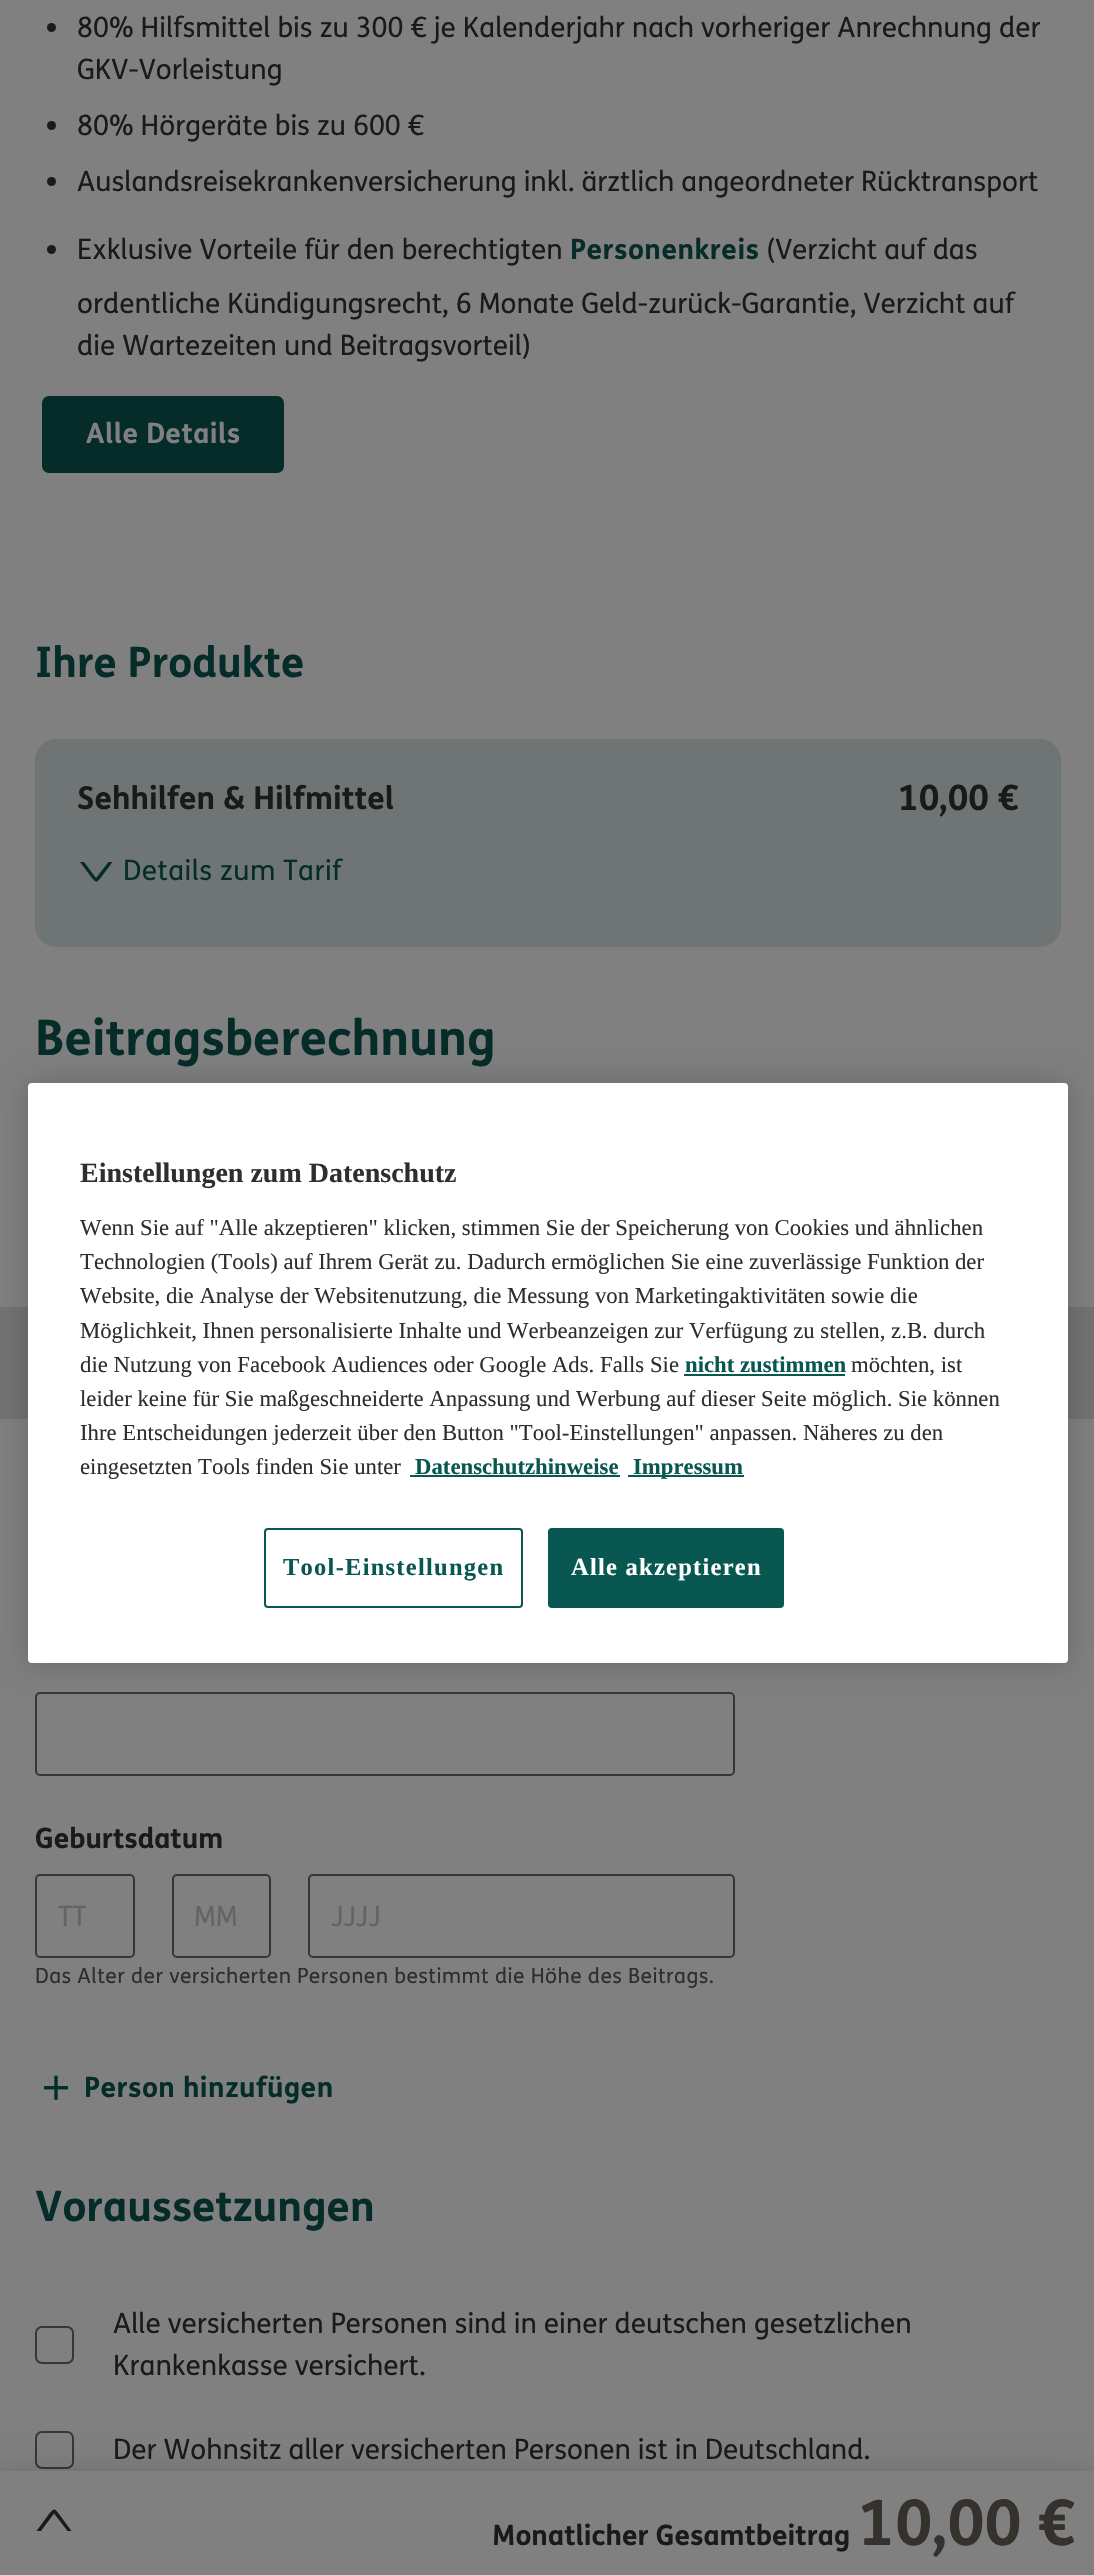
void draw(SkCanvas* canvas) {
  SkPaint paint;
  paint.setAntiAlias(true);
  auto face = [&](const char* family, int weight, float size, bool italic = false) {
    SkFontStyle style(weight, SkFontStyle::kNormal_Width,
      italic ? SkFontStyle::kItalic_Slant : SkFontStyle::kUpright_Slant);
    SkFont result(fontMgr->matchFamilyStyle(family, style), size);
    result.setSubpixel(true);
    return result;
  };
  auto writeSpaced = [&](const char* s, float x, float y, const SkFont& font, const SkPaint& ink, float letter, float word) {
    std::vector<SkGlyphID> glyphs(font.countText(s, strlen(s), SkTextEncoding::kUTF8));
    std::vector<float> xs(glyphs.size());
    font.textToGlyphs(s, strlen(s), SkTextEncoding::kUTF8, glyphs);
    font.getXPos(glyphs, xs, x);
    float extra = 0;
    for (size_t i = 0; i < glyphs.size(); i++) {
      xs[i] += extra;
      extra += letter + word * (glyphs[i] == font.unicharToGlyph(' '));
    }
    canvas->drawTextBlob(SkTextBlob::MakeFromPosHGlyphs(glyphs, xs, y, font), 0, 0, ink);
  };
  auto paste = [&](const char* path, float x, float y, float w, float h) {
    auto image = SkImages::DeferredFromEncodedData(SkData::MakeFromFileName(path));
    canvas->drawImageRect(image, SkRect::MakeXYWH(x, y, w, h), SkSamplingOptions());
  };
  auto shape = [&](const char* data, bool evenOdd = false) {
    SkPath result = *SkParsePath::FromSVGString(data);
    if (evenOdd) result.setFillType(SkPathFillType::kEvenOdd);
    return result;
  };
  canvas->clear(0xff808080);
  paint.setColor(0xff1a1a1a);
  canvas->drawCircle(51.5f, 27.5f, 4.5f, paint);
  canvas->drawCircle(51.5f, 125.5f, 4.5f, paint);
  canvas->drawCircle(51.5f, 181.5f, 4.5f, paint);
  canvas->drawCircle(51.5f, 249.5f, 4.5f, paint);
  paint.setColor(0xff052c29);
  canvas->drawRoundRect(SkRect::MakeXYWH(43, 397, 240, 75), 6, 6, paint);
  paint.setStroke(true);
  paint.setStrokeWidth(2);
  canvas->drawRoundRect(SkRect::MakeXYWH(43, 397, 240, 75), 6, 6, paint);
  paint.setStroke(false);
  paint.setColor(0xff6f7474);
  canvas->drawRoundRect(SkRect::MakeXYWH(35, 739, 1026, 208), 21, 21, paint);
  paint.setColor(0xff052c29);
  canvas->drawPath(shape("M108.5 862L96 878L84 862H80L91.5 877.5C96 883 96.5 883 101 877.5L112.5 862Z"), paint);
  paint.setColor(0xff747373);
  canvas->drawRect(SkRect::MakeXYWH(0, 1307, 1094, 112), paint);
  paint.setStroke(true);
  paint.setColor(0xff373536);
  canvas->drawRoundRect(SkRect::MakeXYWH(36, 1693, 698, 82), 4, 4, paint);
  canvas->drawRoundRect(SkRect::MakeXYWH(36, 1875, 98, 82), 4, 4, paint);
  canvas->drawRoundRect(SkRect::MakeXYWH(173, 1875, 97, 82), 4, 4, paint);
  canvas->drawRoundRect(SkRect::MakeXYWH(309, 1875, 425, 82), 4, 4, paint);
  paste("img/1.png", 43, 2075, 26, 25);
  canvas->drawRoundRect(SkRect::MakeXYWH(36, 2327, 37, 36), 6, 6, paint);
  canvas->drawRoundRect(SkRect::MakeXYWH(36, 2432, 37, 36), 6, 6, paint);
  paint.setStroke(false);
  paint.setColor(0x1f000000);
  paint.setMaskFilter(SkMaskFilter::MakeBlur(kNormal_SkBlurStyle, 18.5f));
  canvas->drawRect(SkRect::MakeXYWH(0, 2473, 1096, 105), paint);
  paint.setMaskFilter(nullptr);
  paint.setColor(0x24000000);
  paint.setMaskFilter(SkMaskFilter::MakeBlur(kNormal_SkBlurStyle, 10.5f));
  canvas->drawRect(SkRect::MakeXYWH(0, 2480, 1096, 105), paint);
  paint.setMaskFilter(nullptr);
  paint.setColor(0xff808080);
  canvas->drawRect(SkRect::MakeXYWH(0, 2471, 1094, 104), paint);
  paint.setColor(0xff1b1a1a);
  canvas->drawPath(shape("M67.5 2531L54 2513.5L41 2531H36.5L49 2514C54 2508 54.5 2508 59 2514L71.5 2531Z"), paint);
  paint.setColor(0x33000000);
  paint.setMaskFilter(SkMaskFilter::MakeBlur(kNormal_SkBlurStyle, 16));
  canvas->drawRoundRect(SkRect::MakeXYWH(28, 1083, 1040, 580), 4, 4, paint);
  paint.setMaskFilter(nullptr);
  paint.setColor(0xffffffff);
  canvas->drawRoundRect(SkRect::MakeXYWH(28, 1083, 1040, 580), 4, 4, paint);
  {
    const struct { float x, y, w, h; SkColor color; } items[] = {
      {684, 1374, 161, 2, 0xff095751},
      {410, 1475, 210, 2, 0xff095751},
      {628, 1475, 116, 2, 0xff095751},
    };
    for (auto [x, y, w, h, color] : items) {
      paint.setColor(color);
      canvas->drawRect(SkRect::MakeXYWH(x, y, w, h), paint);
    }
  }
  paint.setStroke(true);
  canvas->drawRoundRect(SkRect::MakeXYWH(265, 1529, 257, 78), 3, 3, paint);
  paint.setStroke(false);
  canvas->drawRoundRect(SkRect::MakeXYWH(549, 1529, 234, 78), 3, 3, paint);
  paint.setStroke(true);
  canvas->drawRoundRect(SkRect::MakeXYWH(549, 1529, 234, 78), 3, 3, paint);
  auto f0 = face("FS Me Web", 400, 28);
  paint.setStroke(false);
  paint.setColor(0xff1a1a1a);
  {
    const struct { const char* s; float x, y; } items[] = {
      {"80% Hilfsmittel bis zu 300 € je Kalenderjahr nach vorheriger Anrechnung der", 77, 37},
      {"GKV-Vorleistung", 77, 79},
      {"80% Hörgeräte bis zu 600 €", 77, 135},
      {"Auslandsreisekrankenversicherung inkl. ärztlich angeordneter Rücktransport", 77, 191},
      {"Exklusive Vorteile für den berechtigten", 77, 259},
    };
    for (auto [s, x, y] : items) {
      canvas->drawString(s, x, y, f0, paint);
    }
  }
  auto f1 = face("FS Me Web", 700, 28);
  paint.setColor(0xff052c29);
  writeSpaced("Personenkreis", 570, 259, f1, paint, 0.45f, 0);
  paint.setColor(0xff1a1a1a);
  {
    const struct { const char* s; float x, y; } items[] = {
      {"(Verzicht auf das", 766, 259},
      {"ordentliche Kündigungsrecht, 6 Monate Geld-zurück-Garantie, Verzicht auf", 77, 313},
      {"die Wartezeiten und Beitragsvorteil)", 77, 355},
    };
    for (auto [s, x, y] : items) {
      canvas->drawString(s, x, y, f0, paint);
    }
  }
  paint.setColor(0xff808080);
  writeSpaced("Alle Details", 86, 443, f1, paint, 0.45f, 0);
  auto f2 = face("FS Me Web", 700, 42);
  paint.setColor(0xff052c29);
  canvas->drawString("Ihre Produkte", 35, 677, f2, paint);
  auto f3 = face("FS Me Web", 700, 31.5f);
  paint.setColor(0xff1a1a1a);
  canvas->drawString("Sehhilfen & Hilfmittel", 77, 809, f3, paint);
  auto f4 = face("FS Me Web", 700, 35);
  canvas->drawString("10,00 €", 898, 810, f4, paint);
  paint.setColor(0xff052c29);
  writeSpaced("Details zum Tarif", 123, 880, f0, paint, 0.45f, 0);
  auto f5 = face("FS Me Web", 700, 49);
  canvas->drawString("Beitragsberechnung", 35, 1055, f5, paint);
  paint.setColor(0xff1a1a1a);
  canvas->drawString("Geburtsdatum", 35, 1848, f1, paint);
  paint.setColor(0xff656364);
  {
    const struct { const char* s; float x, y; } items[] = {
      {"TT", 58, 1926},
      {"MM", 194, 1926},
      {"JJJJ", 331, 1926},
    };
    for (auto [s, x, y] : items) {
      canvas->drawString(s, x, y, f0, paint);
    }
  }
  auto f6 = face("FS Me Web", 400, 21);
  paint.setColor(0xff2f2e2f);
  writeSpaced("Das Alter der versicherten Personen bestimmt die Höhe des Beitrags.", 35, 1983, f6, paint, 0.45f, 0);
  paint.setColor(0xff052c29);
  writeSpaced("Person hinzufügen", 84, 2097, f1, paint, 0.45f, 0);
  canvas->drawString("Voraussetzungen", 35, 2221, f2, paint);
  paint.setColor(0xff1a1a1a);
  {
    const struct { const char* s; float x, y; } items[] = {
      {"Alle versicherten Personen sind in einer deutschen gesetzlichen", 113, 2333},
      {"Krankenkasse versichert.", 113, 2375},
      {"Der Wohnsitz aller versicherten Personen ist in Deutschland.", 113, 2459},
    };
    for (auto [s, x, y] : items) {
      canvas->drawString(s, x, y, f0, paint);
    }
  }
  canvas->drawString("Monatlicher Gesamtbeitrag", 492, 2545, f1, paint);
  auto f7 = face("FS Me Web", 700, 63);
  paint.setColor(0xff35312d);
  canvas->drawString("10,00 €", 858, 2545, f7, paint);
  auto f8 = face("Liberation Serif", 700, 28);
  paint.setColor(0xff2f2e2f);
  canvas->drawString("Einstellungen zum Datenschutz", 80, 1182, f8, paint);
  auto f9 = face("Liberation Serif", 400, 22.75f);
  {
    const struct { const char* s; float x, y; } items[] = {
      {"Wenn Sie auf \"Alle akzeptieren\" klicken, stimmen Sie der Speicherung von Cookies und ähnlichen", 80, 1235},
      {"Technologien (Tools) auf Ihrem Gerät zu. Dadurch ermöglichen Sie eine zuverlässige Funktion der", 80, 1269},
      {"Website, die Analyse der Websitenutzung, die Messung von Marketingaktivitäten sowie die", 80, 1303},
      {"Möglichkeit, Ihnen personalisierte Inhalte und Werbeanzeigen zur Verfügung zu stellen, z.B. durch", 80, 1338},
      {"die Nutzung von Facebook Audiences oder Google Ads. Falls Sie", 80, 1372},
    };
    for (auto [s, x, y] : items) {
      canvas->drawString(s, x, y, f9, paint);
    }
  }
  auto f10 = face("Liberation Serif", 700, 22.75f);
  paint.setColor(0xff095751);
  canvas->drawString("nicht zustimmen", 685, 1372, f10, paint);
  paint.setColor(0xff2f2e2f);
  {
    const struct { const char* s; float x, y; } items[] = {
      {"möchten, ist", 851, 1372},
      {"leider keine für Sie maßgeschneiderte Anpassung und Werbung auf dieser Seite möglich. Sie können", 80, 1406},
      {"Ihre Entscheidungen jederzeit über den Button \"Tool-Einstellungen\" anpassen. Näheres zu den", 80, 1440},
      {"eingesetzten Tools finden Sie unter", 80, 1474},
    };
    for (auto [s, x, y] : items) {
      canvas->drawString(s, x, y, f9, paint);
    }
  }
  paint.setColor(0xff095751);
  canvas->drawString("Datenschutzhinweise", 415, 1474, f10, paint);
  canvas->drawString("Impressum", 633, 1474, f10, paint);
  auto f11 = face("Liberation Serif", 700, 24.5f);
  writeSpaced("Tool-Einstellungen", 283, 1575, f11, paint, 1.25f, 0);
  paint.setColor(0xffffffff);
  writeSpaced("Alle akzeptieren", 571, 1575, f11, paint, 1.25f, 0);
}
